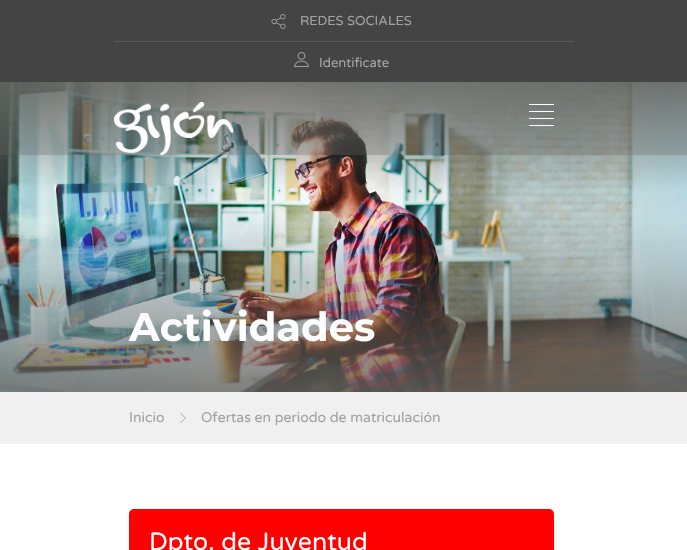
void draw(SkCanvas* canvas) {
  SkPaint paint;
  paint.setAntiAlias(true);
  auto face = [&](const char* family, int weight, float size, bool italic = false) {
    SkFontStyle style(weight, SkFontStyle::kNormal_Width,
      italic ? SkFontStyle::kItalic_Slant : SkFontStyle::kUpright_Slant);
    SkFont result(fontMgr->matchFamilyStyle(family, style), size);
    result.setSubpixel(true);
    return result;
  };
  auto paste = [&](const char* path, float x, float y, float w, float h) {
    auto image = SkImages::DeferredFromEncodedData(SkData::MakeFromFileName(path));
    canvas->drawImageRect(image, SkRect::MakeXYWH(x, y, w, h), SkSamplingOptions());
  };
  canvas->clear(0xffffffff);
  paint.setColor(0xff444444);
  canvas->drawRect(SkRect::MakeXYWH(0, 0, 687, 82), paint);
  paste("img/1.png", 271, 14, 15, 15);
  paint.setColor(0xff595959);
  canvas->drawRect(SkRect::MakeXYWH(114, 41, 460, 1), paint);
  paste("img/2.png", 294, 52, 15, 15);
  paste("img/4.png", 0, 82, 687, 310);
  paint.setColor(0x4d656460);
  canvas->drawRect(SkRect::MakeXYWH(0, 82, 687, 73), paint);
  paste("img/3.png", 114, 102, 120, 53);
  {
    const struct { float x, y, w, h; SkColor color; } items[] = {
      {529, 104, 25, 1, 0xffffffff},
      {529, 111, 25, 1, 0xffffffff},
      {529, 118, 25, 1, 0xffffffff},
      {529, 125, 25, 1, 0xffffffff},
      {0, 392, 687, 52, 0xfff0f0f0},
    };
    for (auto [x, y, w, h, color] : items) {
      paint.setColor(color);
      canvas->drawRect(SkRect::MakeXYWH(x, y, w, h), paint);
    }
  }
  paste("img/5.png", 180, 413, 6, 10);
  paint.setColor(0xffff0000);
  canvas->drawRoundRect(SkRect::MakeXYWH(129, 509, 425, 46), 5, 5, paint);
  auto f0 = face("Varela Round", 400, 13);
  paint.setColor(0xffa3a3a3);
  canvas->drawString("REDES SOCIALES", 300, 25, f0, paint);
  canvas->drawString("Identificate", 319, 67, f0, paint);
  auto f1 = face("Montserrat", 700, 40);
  paint.setColor(0xffffffff);
  canvas->drawString("Actividades", 129, 341, f1, paint);
  auto f2 = face("Varela Round", 400, 14);
  paint.setColor(0xffa3a3a3);
  canvas->drawString("Inicio", 129, 422, f2, paint);
  canvas->drawString("Ofertas en periodo de matriculación", 201, 422, f2, paint);
  auto f3 = face("Varela Round", 400, 25);
  paint.setColor(0xffffffff);
  canvas->drawString("Dpto. de Juventud", 149, 550, f3, paint);
}
